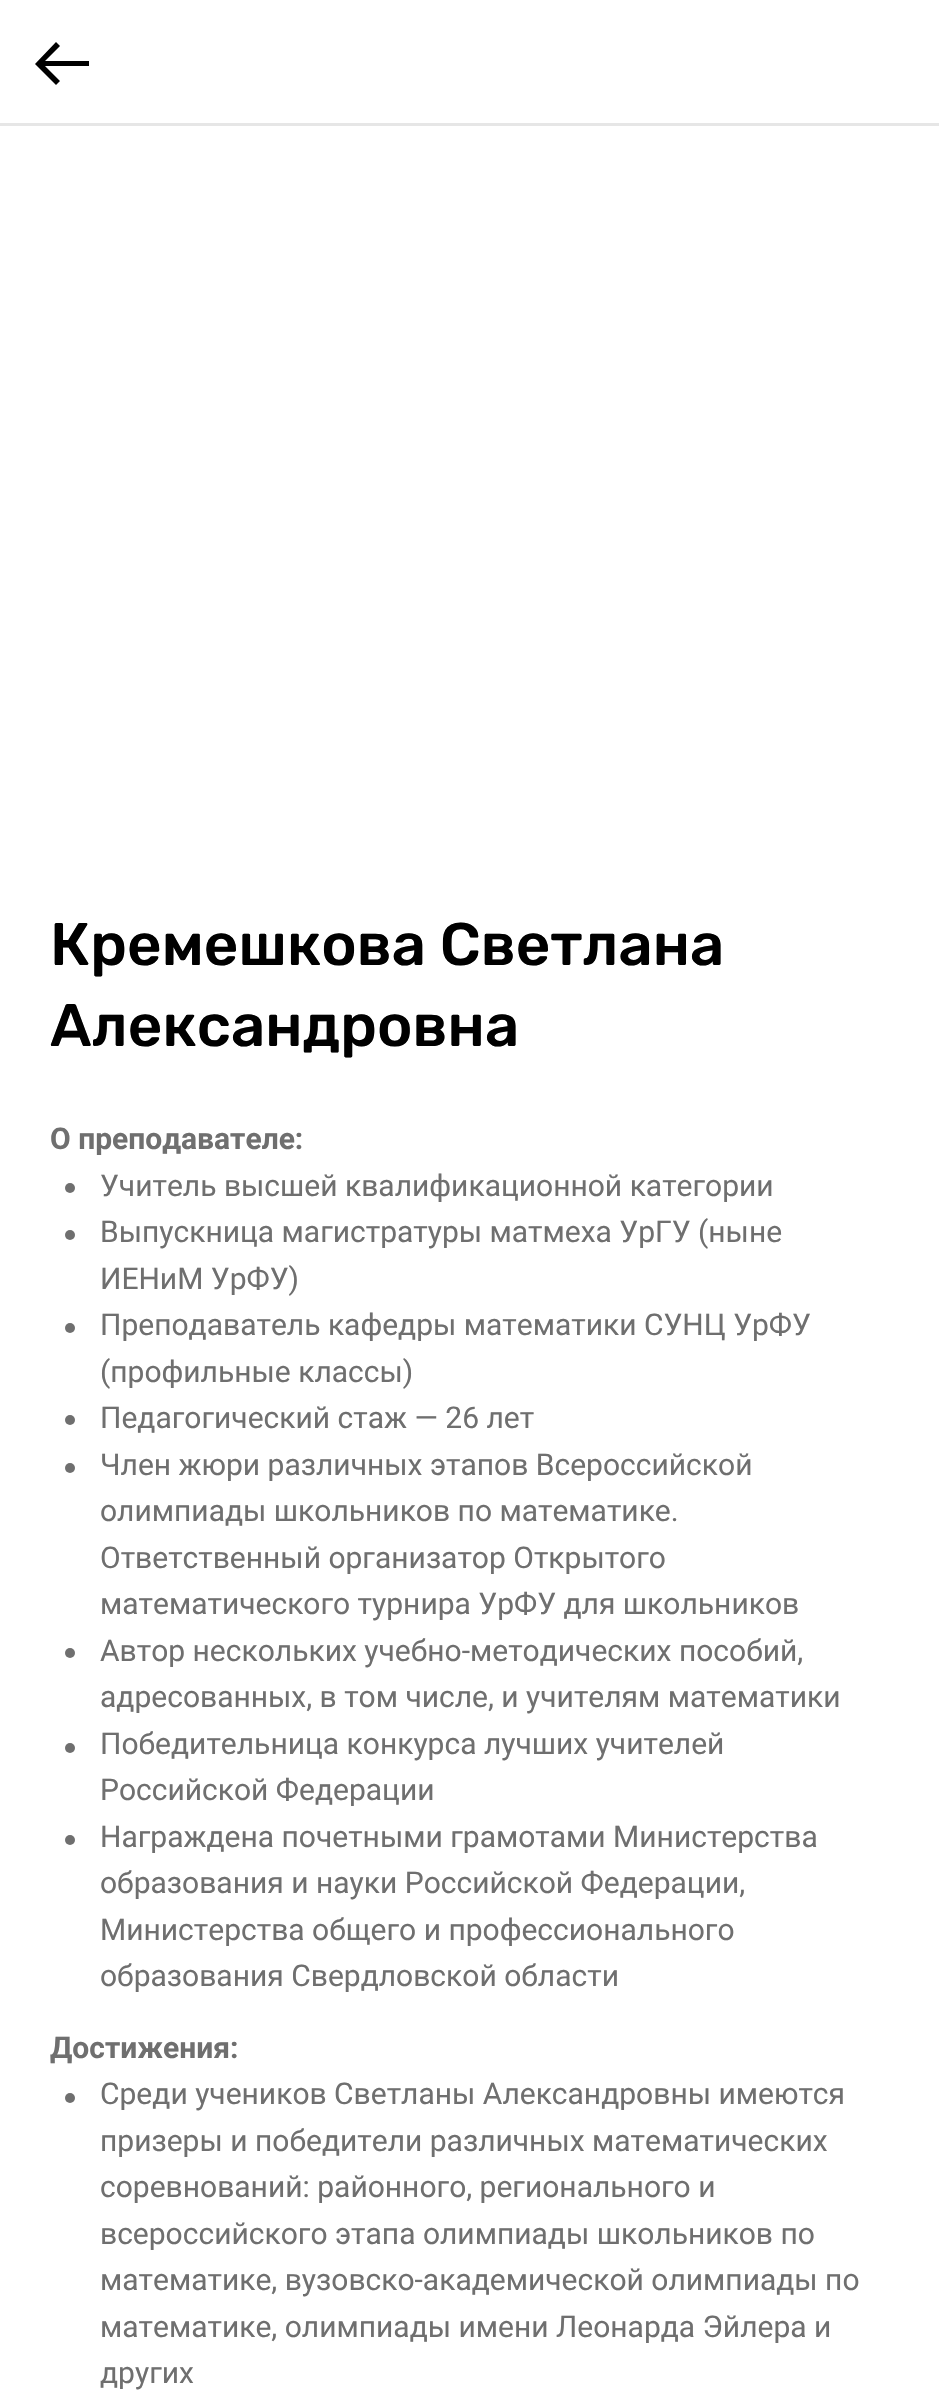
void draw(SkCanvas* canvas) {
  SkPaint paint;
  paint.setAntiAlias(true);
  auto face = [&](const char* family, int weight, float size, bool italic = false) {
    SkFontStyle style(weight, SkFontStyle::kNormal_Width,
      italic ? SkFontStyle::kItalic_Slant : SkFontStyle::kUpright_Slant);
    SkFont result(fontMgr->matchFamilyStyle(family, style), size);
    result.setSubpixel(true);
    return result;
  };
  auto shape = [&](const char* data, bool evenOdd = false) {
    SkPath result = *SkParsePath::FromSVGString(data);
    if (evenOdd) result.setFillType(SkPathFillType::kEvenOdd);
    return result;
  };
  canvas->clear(0xffffffff);
  paint.setColor(0xffe6e6e6);
  canvas->drawRect(SkRect::MakeXYWH(0, 123, 939, 3), paint);
  paint.setColor(0xff000000);
  canvas->drawPath(shape("M56 42L60 46L45 61H89V66H45L60 81L56 85L35 64Z"), paint);
  paint.setColor(0xff6f6f6f);
  canvas->drawCircle(70, 1188, 5, paint);
  canvas->drawCircle(70, 1235, 5, paint);
  canvas->drawCircle(70, 1328, 5, paint);
  canvas->drawCircle(70, 1420, 5, paint);
  canvas->drawCircle(70, 1468, 5, paint);
  canvas->drawCircle(70, 1653, 5, paint);
  canvas->drawCircle(70, 1748, 5, paint);
  canvas->drawCircle(70, 1840, 5, paint);
  canvas->drawCircle(70, 2098, 5, paint);
  auto f0 = face("Rubik", 500, 60);
  paint.setColor(0xff000000);
  canvas->drawString("Кремешкова Светлана", 50, 965, f0, paint);
  canvas->drawString("Александровна", 50, 1046, f0, paint);
  auto f1 = face("Roboto", 700, 30);
  paint.setColor(0xff6f6f6f);
  canvas->drawString("О преподавателе:", 50, 1149, f1, paint);
  auto f2 = face("Roboto", 400, 30);
  {
    const struct { const char* s; float x, y; } items[] = {
      {"Учитель высшей квалификационной категории", 100, 1196},
      {"Выпускница магистратуры матмеха УрГУ (ныне", 100, 1242},
      {"ИЕНиМ УрФУ)", 100, 1289},
      {"Преподаватель кафедры математики СУНЦ УрФУ", 100, 1335},
      {"(профильные классы)", 100, 1382},
      {"Педагогический стаж — 26 лет", 100, 1428},
      {"Член жюри различных этапов Всероссийской", 100, 1475},
      {"олимпиады школьников по математике.", 100, 1521},
      {"Ответственный организатор Открытого", 100, 1568},
      {"математического турнира УрФУ для школьников", 100, 1614},
      {"Автор нескольких учебно-методических пособий,", 100, 1661},
      {"адресованных, в том числе, и учителям математики", 100, 1707},
      {"Победительница конкурса лучших учителей", 100, 1754},
      {"Российской Федерации", 100, 1800},
      {"Награждена почетными грамотами Министерства", 100, 1847},
      {"образования и науки Российской Федерации,", 100, 1893},
      {"Министерства общего и профессионального", 100, 1940},
      {"образования Свердловской области", 100, 1986},
    };
    for (auto [s, x, y] : items) {
      canvas->drawString(s, x, y, f2, paint);
    }
  }
  canvas->drawString("Достижения:", 50, 2058, f1, paint);
  {
    const struct { const char* s; float x, y; } items[] = {
      {"Среди учеников Светланы Александровны имеются", 100, 2104},
      {"призеры и победители различных математических", 100, 2151},
      {"соревнований: районного, регионального и", 100, 2197},
      {"всероссийского этапа олимпиады школьников по", 100, 2244},
      {"математике, вузовско-академической олимпиады по", 100, 2290},
      {"математике, олимпиады имени Леонарда Эйлера и", 100, 2337},
      {"других", 100, 2383},
    };
    for (auto [s, x, y] : items) {
      canvas->drawString(s, x, y, f2, paint);
    }
  }
}
